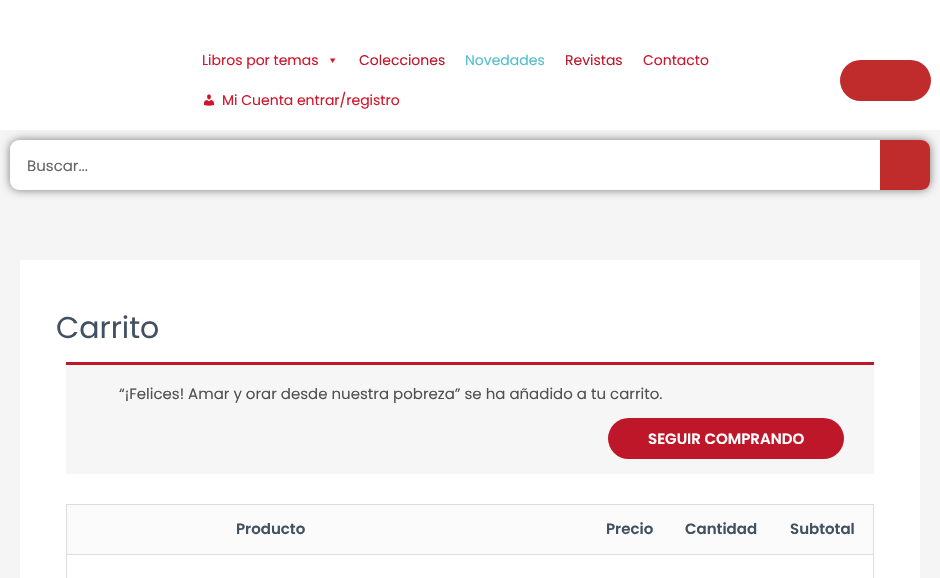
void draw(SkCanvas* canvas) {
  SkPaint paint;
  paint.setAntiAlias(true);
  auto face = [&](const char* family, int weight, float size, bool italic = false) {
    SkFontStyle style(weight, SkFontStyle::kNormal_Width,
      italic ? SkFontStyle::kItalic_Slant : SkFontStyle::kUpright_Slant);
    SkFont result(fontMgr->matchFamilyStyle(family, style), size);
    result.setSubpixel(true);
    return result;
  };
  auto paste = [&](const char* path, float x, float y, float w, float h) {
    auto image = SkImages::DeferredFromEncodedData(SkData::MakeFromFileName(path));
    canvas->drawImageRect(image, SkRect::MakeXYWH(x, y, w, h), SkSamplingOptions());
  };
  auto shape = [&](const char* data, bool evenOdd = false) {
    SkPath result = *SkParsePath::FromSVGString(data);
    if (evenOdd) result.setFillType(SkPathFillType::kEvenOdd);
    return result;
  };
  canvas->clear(0xfff5f5f5);
  paint.setColor(0x80000000);
  paint.setMaskFilter(SkMaskFilter::MakeBlur(kNormal_SkBlurStyle, 5));
  canvas->drawRoundRect(SkRect::MakeXYWH(10, 140, 920, 50), 9, 9, paint);
  paint.setMaskFilter(nullptr);
  paint.setColor(0xffffffff);
  canvas->drawRect(SkRect::MakeXYWH(0, 0, 940, 130), paint);
  paint.setColor(0xffd2152b);
  canvas->drawPath(shape("M335.5 58.5L332.5 63L330 58.5Z"), paint);
  paste("img/1.png", 203, 94, 12, 12);
  paint.setColor(0xffc02c2b);
  canvas->drawRoundRect(SkRect::MakeXYWH(840, 60, 91, 41), 20.5f, 20.5f, paint);
  paint.setColor(0xffffffff);
  canvas->drawRoundRect(SkRect::MakeXYWH(10, 140, 920, 50), 9, 9, paint);
  paint.setColor(0xffc02c2b);
  canvas->drawPath(shape("M880 140H921C926 140 930 144 930 149V181C930 186 926 190 921 190H880Z"), paint);
  {
    const struct { float x, y, w, h; SkColor color; } items[] = {
      {20, 260, 900, 318, 0xffffffff},
      {66, 365, 808, 109, 0xfff7f6f7},
      {66, 362, 808, 3, 0xffbf172a},
    };
    for (auto [x, y, w, h, color] : items) {
      paint.setColor(color);
      canvas->drawRect(SkRect::MakeXYWH(x, y, w, h), paint);
    }
  }
  canvas->drawRoundRect(SkRect::MakeXYWH(608, 418, 236, 41), 20.5f, 20.5f, paint);
  paint.setStroke(true);
  paint.setStrokeWidth(1);
  paint.setColor(0xffdddddd);
  canvas->drawRect(SkRect::MakeXYWH(66.5f, 504.5f, 807, 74), paint);
  paint.setStroke(false);
  paint.setColor(0xfffbfbfb);
  canvas->drawRect(SkRect::MakeXYWH(67, 505, 806, 49), paint);
  paint.setColor(0xffdddddd);
  canvas->drawRect(SkRect::MakeXYWH(67, 554, 806, 1), paint);
  auto f0 = face("Poppins", 400, 14);
  paint.setColor(0xffd2152b);
  canvas->drawString("Libros por temas", 202, 65, f0, paint);
  paint.setColor(0xffbf172a);
  canvas->drawString("Colecciones", 359, 65, f0, paint);
  paint.setColor(0xff50bfcf);
  canvas->drawString("Novedades", 465, 65, f0, paint);
  paint.setColor(0xffbf172a);
  canvas->drawString("Revistas", 565, 65, f0, paint);
  paint.setColor(0xffd2152b);
  canvas->drawString("Contacto", 643, 65, f0, paint);
  canvas->drawString("Mi Cuenta entrar/registro", 222, 105, f0, paint);
  auto f1 = face("Poppins", 400, 15);
  paint.setColor(0xff666666);
  canvas->drawString("Buscar...", 27, 171, f1, paint);
  auto f2 = face("Poppins", 400, 30);
  paint.setColor(0xff415161);
  canvas->drawString("Carrito", 56, 338, f2, paint);
  paint.setColor(0xff515151);
  canvas->drawString("“¡Felices! Amar y orar desde nuestra pobreza” se ha añadido a tu carrito.", 119, 399, f1, paint);
  auto f3 = face("Poppins", 600, 15);
  paint.setColor(0xffffffff);
  canvas->drawString("SEGUIR COMPRANDO", 648, 444, f3, paint);
  paint.setColor(0xff415161);
  {
    const struct { const char* s; float x, y; } items[] = {
      {"Producto", 236, 534},
      {"Precio", 606, 534},
      {"Cantidad", 685, 534},
      {"Subtotal", 790, 534},
    };
    for (auto [s, x, y] : items) {
      canvas->drawString(s, x, y, f3, paint);
    }
  }
}
